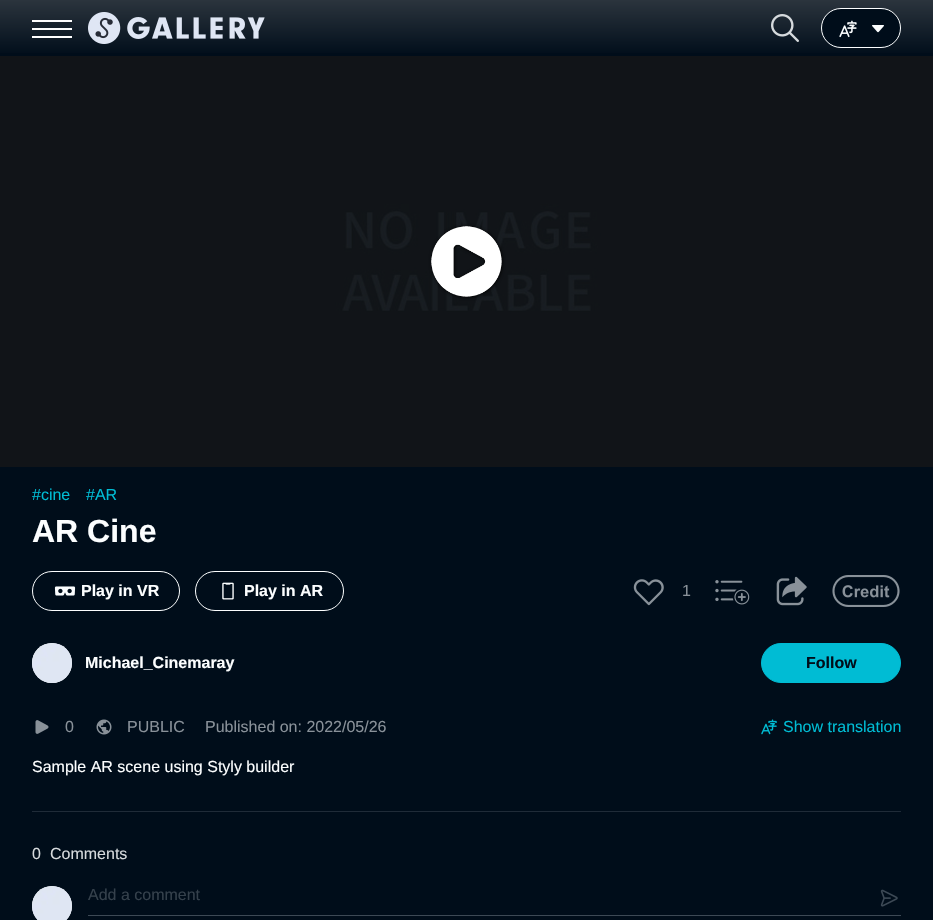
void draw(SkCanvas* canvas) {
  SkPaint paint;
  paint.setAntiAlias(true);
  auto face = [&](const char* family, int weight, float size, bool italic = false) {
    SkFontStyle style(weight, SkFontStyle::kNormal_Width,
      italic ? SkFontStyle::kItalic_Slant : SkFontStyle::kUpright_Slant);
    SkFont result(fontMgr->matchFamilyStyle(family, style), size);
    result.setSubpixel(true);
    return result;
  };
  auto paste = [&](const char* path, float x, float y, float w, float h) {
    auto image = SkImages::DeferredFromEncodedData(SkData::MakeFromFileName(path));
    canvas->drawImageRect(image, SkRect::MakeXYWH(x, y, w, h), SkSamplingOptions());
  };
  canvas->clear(0xff000d1a);
  {
    const SkColor colors[] = {0xff2b343d, 0xff000d1a};
    const float stops[] = {0, 1};
    const SkPoint ends[] = {{467, 0}, {467, 56}};
    paint.setShader(SkGradientShader::MakeLinear(ends, colors, stops, 2, SkTileMode::kClamp));
    paint.setAlpha(255);
  }
  canvas->drawRect(SkRect::MakeXYWH(0, 0, 933, 53), paint);
  paint.setShader(nullptr);
  {
    const struct { float x, y, w, h; SkColor color; } items[] = {
      {32, 20, 40, 2, 0xffffffff},
      {32, 28, 40, 2, 0xffffffff},
      {32, 36, 40, 2, 0xffffffff},
    };
    for (auto [x, y, w, h, color] : items) {
      paint.setColor(color);
      canvas->drawRect(SkRect::MakeXYWH(x, y, w, h), paint);
    }
  }
  paste("img/1.png", 88, 12, 177, 32);
  paste("img/2.png", 771, 14, 28, 28);
  paint.setColor(0xff000d1a);
  canvas->drawRoundRect(SkRect::MakeXYWH(821.5f, 8.5f, 79, 39), 19.5f, 19.5f, paint);
  paint.setStroke(true);
  paint.setStrokeWidth(1);
  paint.setColor(0xfffcfeff);
  canvas->drawRoundRect(SkRect::MakeXYWH(821.5f, 8.5f, 79, 39), 19.5f, 19.5f, paint);
  paste("img/3.png", 839, 20, 18, 18);
  paste("img/4.png", 872, 25, 12, 8);
  paste("img/5.png", 0, 56, 933, 411);
  canvas->drawRoundRect(SkRect::MakeXYWH(32.5f, 571.5f, 147, 39), 19.5f, 19.5f, paint);
  paste("img/6.png", 54, 586, 22, 10);
  canvas->drawRoundRect(SkRect::MakeXYWH(195.5f, 571.5f, 148, 39), 19.5f, 19.5f, paint);
  paste("img/7.png", 222, 582, 12, 18);
  paste("img/8.png", 633, 579, 31, 27);
  paste("img/9.png", 715, 580, 35, 25);
  paste("img/10.png", 776, 576, 31, 30);
  paste("img/11.png", 832, 575, 68, 32);
  paint.setStroke(false);
  paint.setColor(0xffffffff);
  canvas->drawCircle(52, 663, 20, paint);
  paste("img/12.png", 32, 643, 40, 40);
  paint.setColor(0xff00bcd4);
  canvas->drawRoundRect(SkRect::MakeXYWH(761.5f, 643.5f, 139, 39), 19.5f, 19.5f, paint);
  paint.setStroke(true);
  canvas->drawRoundRect(SkRect::MakeXYWH(761.5f, 643.5f, 139, 39), 19.5f, 19.5f, paint);
  paste("img/13.png", 35, 720, 14, 14);
  paste("img/14.png", 96, 719, 16, 16);
  paste("img/15.png", 761, 719, 16, 16);
  paint.setStroke(false);
  paint.setColor(0xff1f2b38);
  canvas->drawRect(SkRect::MakeXYWH(32, 811, 869, 1), paint);
  paint.setColor(0xffffffff);
  canvas->drawCircle(52, 906, 20, paint);
  paste("img/16.png", 32, 886, 40, 34);
  paint.setColor(0xff3d4955);
  canvas->drawRect(SkRect::MakeXYWH(88, 915, 813, 1), paint);
  paste("img/17.png", 880, 889, 18, 18);
  auto f0 = face("Liberation Sans", 400, 16);
  paint.setColor(0xff00bcd4);
  canvas->drawString("#cine", 32, 500, f0, paint);
  canvas->drawString("#AR", 86, 500, f0, paint);
  auto f1 = face("Liberation Sans", 700, 32);
  paint.setColor(0xfffcfeff);
  canvas->drawString("AR Cine", 32, 542, f1, paint);
  auto f2 = face("Liberation Sans", 700, 16);
  canvas->drawString("Play in VR", 81, 596, f2, paint);
  canvas->drawString("Play in AR", 244, 596, f2, paint);
  paint.setColor(0xff899199);
  canvas->drawString("1", 682, 596, f0, paint);
  paint.setColor(0xfffcfeff);
  canvas->drawString("Michael_Cinemaray", 85, 668, f2, paint);
  paint.setColor(0xff000d1a);
  canvas->drawString("Follow", 806, 668, f2, paint);
  paint.setColor(0xff899199);
  {
    const struct { const char* s; float x, y; } items[] = {
      {"0", 65, 732},
      {"PUBLIC", 127, 732},
      {"Published on: 2022/05/26", 205, 732},
    };
    for (auto [s, x, y] : items) {
      canvas->drawString(s, x, y, f0, paint);
    }
  }
  paint.setColor(0xff00bcd4);
  canvas->drawString("Show translation", 783, 732, f0, paint);
  paint.setColor(0xfffcfeff);
  canvas->drawString("Sample AR scene using Styly builder", 32, 772, f0, paint);
  paint.setColor(0xffd6dadd);
  canvas->drawString("0", 32, 859, f0, paint);
  canvas->drawString("Comments", 50, 859, f0, paint);
  paint.setColor(0xff35414c);
  canvas->drawString("Add a comment", 88, 900, f0, paint);
}
